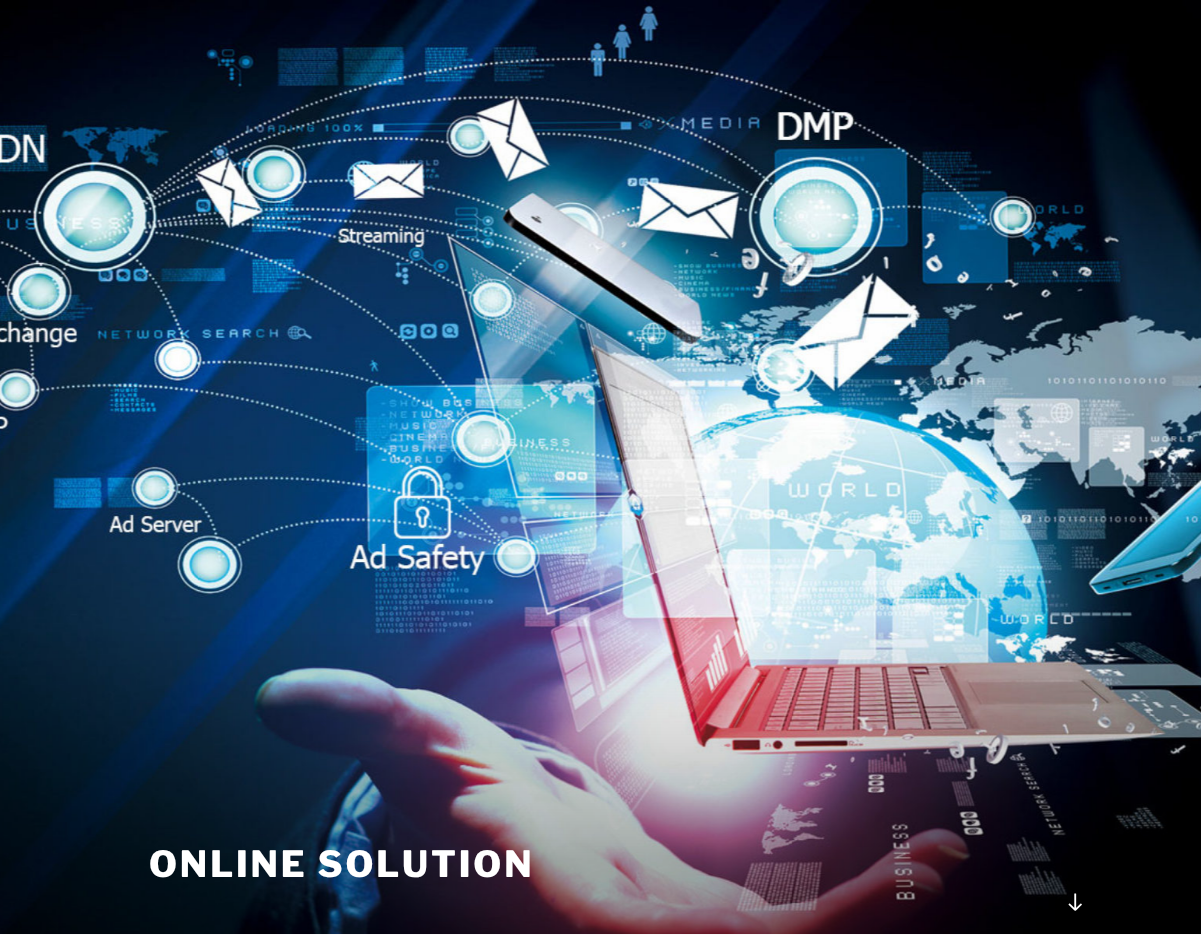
void draw(SkCanvas* canvas) {
  SkPaint paint;
  paint.setAntiAlias(true);
  auto face = [&](const char* family, int weight, float size, bool italic = false) {
    SkFontStyle style(weight, SkFontStyle::kNormal_Width,
      italic ? SkFontStyle::kItalic_Slant : SkFontStyle::kUpright_Slant);
    SkFont result(fontMgr->matchFamilyStyle(family, style), size);
    result.setSubpixel(true);
    return result;
  };
  auto writeSpaced = [&](const char* s, float x, float y, const SkFont& font, const SkPaint& ink, float letter, float word) {
    std::vector<SkGlyphID> glyphs(font.countText(s, strlen(s), SkTextEncoding::kUTF8));
    std::vector<float> xs(glyphs.size());
    font.textToGlyphs(s, strlen(s), SkTextEncoding::kUTF8, glyphs);
    font.getXPos(glyphs, xs, x);
    float extra = 0;
    for (size_t i = 0; i < glyphs.size(); i++) {
      xs[i] += extra;
      extra += letter + word * (glyphs[i] == font.unicharToGlyph(' '));
    }
    canvas->drawTextBlob(SkTextBlob::MakeFromPosHGlyphs(glyphs, xs, y, font), 0, 0, ink);
  };
  auto paste = [&](const char* path, float x, float y, float w, float h) {
    auto image = SkImages::DeferredFromEncodedData(SkData::MakeFromFileName(path));
    canvas->drawImageRect(image, SkRect::MakeXYWH(x, y, w, h), SkSamplingOptions());
  };
  canvas->clear(0xfffafafa);
  paste("img/1.png", 0, 0, 1201, 934);
  paste("img/2.png", 1068, 893, 14, 18);
  auto f0 = face("Libre Franklin", 100, 36);
  paint.setColor(0xffffffff);
  writeSpaced("ONLINE SOLUTION", 149, 877, f0, paint, 2.9f, 0);
}
